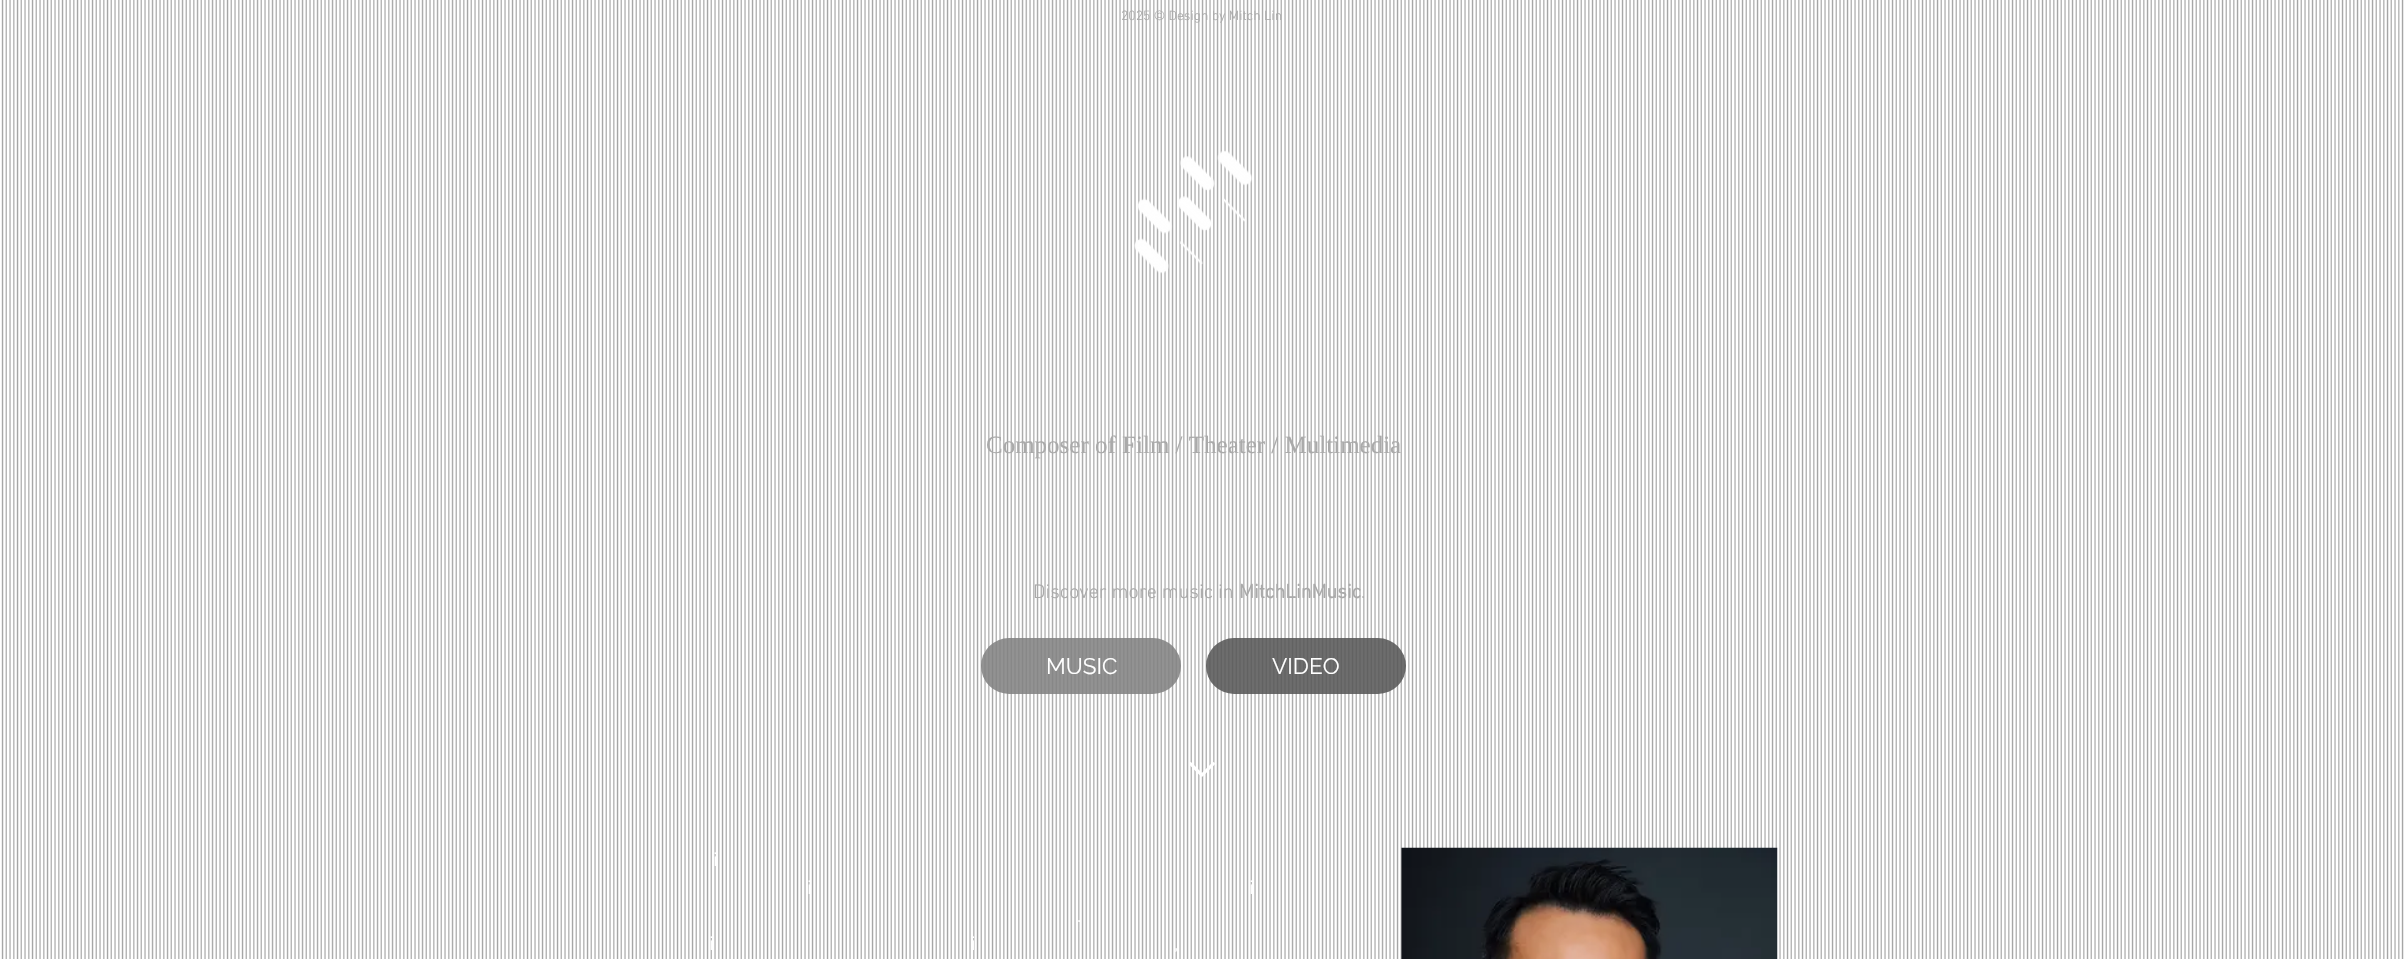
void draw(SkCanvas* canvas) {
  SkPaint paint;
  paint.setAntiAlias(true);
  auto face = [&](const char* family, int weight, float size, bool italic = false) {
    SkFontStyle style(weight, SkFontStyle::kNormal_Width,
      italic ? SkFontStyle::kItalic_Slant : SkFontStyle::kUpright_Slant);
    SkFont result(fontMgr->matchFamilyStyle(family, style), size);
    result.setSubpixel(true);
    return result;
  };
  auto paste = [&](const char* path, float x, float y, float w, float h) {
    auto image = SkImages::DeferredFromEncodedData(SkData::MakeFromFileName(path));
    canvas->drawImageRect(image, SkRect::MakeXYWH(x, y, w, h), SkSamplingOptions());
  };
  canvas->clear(0xffffffff);
  paste("img/1.png", 1, 0, 2403, 959);
  paste("img/2.png", 1134, 150, 118, 124);
  paint.setColor(0xdb808080);
  canvas->drawRoundRect(SkRect::MakeXYWH(981, 638, 200, 56), 28, 28, paint);
  paint.setColor(0xdb555555);
  canvas->drawRoundRect(SkRect::MakeXYWH(1206, 638, 200, 56), 28, 28, paint);
  paste("img/3.png", 1190, 762, 25, 15);
  paste("img/4.png", 1401, 847, 377, 112);
  auto f0 = face("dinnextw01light", 300, 13.75f);
  paint.setColor(0xffaaaaaa);
  canvas->drawString("2025 © Design by Mitch Lin", 1121, 20, f0, paint);
  auto f1 = face("Liberation Serif", 400, 25);
  canvas->drawString("Composer of Film / Theater / Multimedia", 986, 453, f1, paint);
  auto f2 = face("dinnextw01light", 300, 20);
  canvas->drawString("Discover more music in", 1033, 598, f2, paint);
  auto f3 = face("dinnextw01light", 700, 20);
  canvas->drawString("MitchLinMusic", 1239, 598, f3, paint);
  canvas->drawString(".", 1361, 598, f2, paint);
  auto f4 = face("Raleway", 400, 22.5f);
  paint.setColor(0xffffffff);
  canvas->drawString("MUSIC", 1046, 674, f4, paint);
  canvas->drawString("VIDEO", 1272, 674, f4, paint);
  {
    const struct { const char* s; float x, y; } items[] = {
      {"i", 713, 866},
      {"i", 807, 894},
      {"i", 1249, 894},
      {".", 1077, 922},
      {"i", 709, 950},
      {"i", 971, 950},
      {",", 1174, 950},
    };
    for (auto [s, x, y] : items) {
      canvas->drawString(s, x, y, f2, paint);
    }
  }
}
